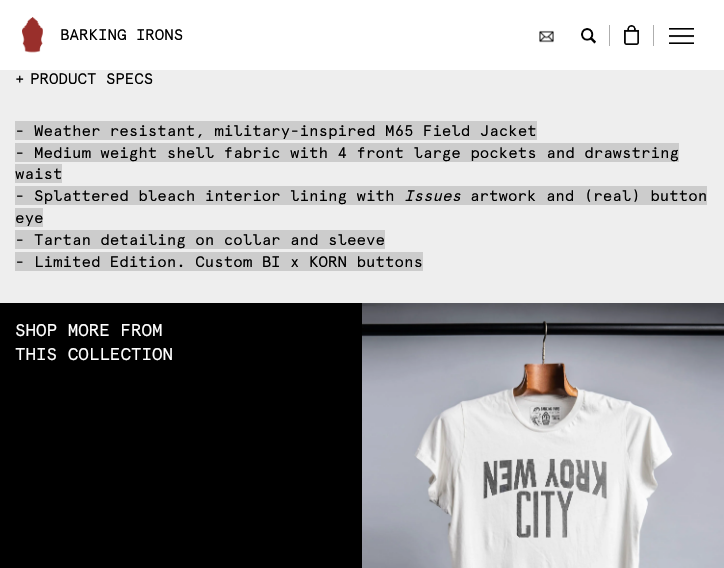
void draw(SkCanvas* canvas) {
  SkPaint paint;
  paint.setAntiAlias(true);
  auto face = [&](const char* family, int weight, float size, bool italic = false) {
    SkFontStyle style(weight, SkFontStyle::kNormal_Width,
      italic ? SkFontStyle::kItalic_Slant : SkFontStyle::kUpright_Slant);
    SkFont result(fontMgr->matchFamilyStyle(family, style), size);
    result.setSubpixel(true);
    return result;
  };
  auto paste = [&](const char* path, float x, float y, float w, float h) {
    auto image = SkImages::DeferredFromEncodedData(SkData::MakeFromFileName(path));
    canvas->drawImageRect(image, SkRect::MakeXYWH(x, y, w, h), SkSamplingOptions());
  };
  canvas->clear(0xffeeeeee);
  paint.setColor(0xffffffff);
  canvas->drawRect(SkRect::MakeXYWH(0, 0, 724, 70), paint);
  paste("img/1.png", 22, 17, 21, 36);
  paste("img/2.png", 539, 30, 15, 13);
  paste("img/3.png", 581, 28, 15, 16);
  paint.setColor(0xffaeaeae);
  canvas->drawRect(SkRect::MakeXYWH(609, 25, 1, 21), paint);
  paste("img/4.png", 624, 25, 15, 20);
  canvas->drawRect(SkRect::MakeXYWH(653, 25, 1, 21), paint);
  paste("img/5.png", 669, 28, 25, 16);
  {
    const struct { float x, y, w, h; SkColor color; } items[] = {
      {15, 121, 522, 19, 0xffcccccc},
      {15, 143, 664, 19, 0xffcccccc},
      {15, 164, 47, 19, 0xffcccccc},
      {15, 186, 692, 19, 0xffcccccc},
      {15, 208, 28, 19, 0xffcccccc},
      {15, 230, 370, 19, 0xffcccccc},
      {15, 252, 408, 19, 0xffcccccc},
      {0, 303, 362, 265, 0xff000000},
    };
    for (auto [x, y, w, h, color] : items) {
      paint.setColor(color);
      canvas->drawRect(SkRect::MakeXYWH(x, y, w, h), paint);
    }
  }
  paste("img/6.png", 362, 303, 362, 265);
  auto f0 = face("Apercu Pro", 100, 15.3f);
  {
    const struct { const char* s; float x, y; } items[] = {
      {"BARKING IRONS", 60, 40},
      {"+", 15, 84},
      {"PRODUCT SPECS", 30, 84},
      {"- Weather resistant, military-inspired M65 Field Jacket", 15, 136},
      {"- Medium weight shell fabric with 4 front large pockets and drawstring", 15, 158},
      {"waist", 15, 179},
      {"- Splattered bleach interior lining with", 15, 201},
    };
    for (auto [s, x, y] : items) {
      canvas->drawString(s, x, y, f0, paint);
    }
  }
  auto f1 = face("Apercu Pro", 100, 15.3f, true);
  canvas->drawString("Issues", 404, 201, f1, paint);
  {
    const struct { const char* s; float x, y; } items[] = {
      {"artwork and (real) button", 470, 201},
      {"eye", 15, 223},
      {"- Tartan detailing on collar and sleeve", 15, 245},
      {"- Limited Edition. Custom BI x KORN buttons", 15, 267},
    };
    for (auto [s, x, y] : items) {
      canvas->drawString(s, x, y, f0, paint);
    }
  }
  auto f2 = face("Apercu Pro", 100, 17);
  paint.setColor(0xffffffff);
  canvas->drawString("SHOP MORE FROM", 15, 336, f2, paint);
  canvas->drawString("THIS COLLECTION", 15, 360, f2, paint);
}
